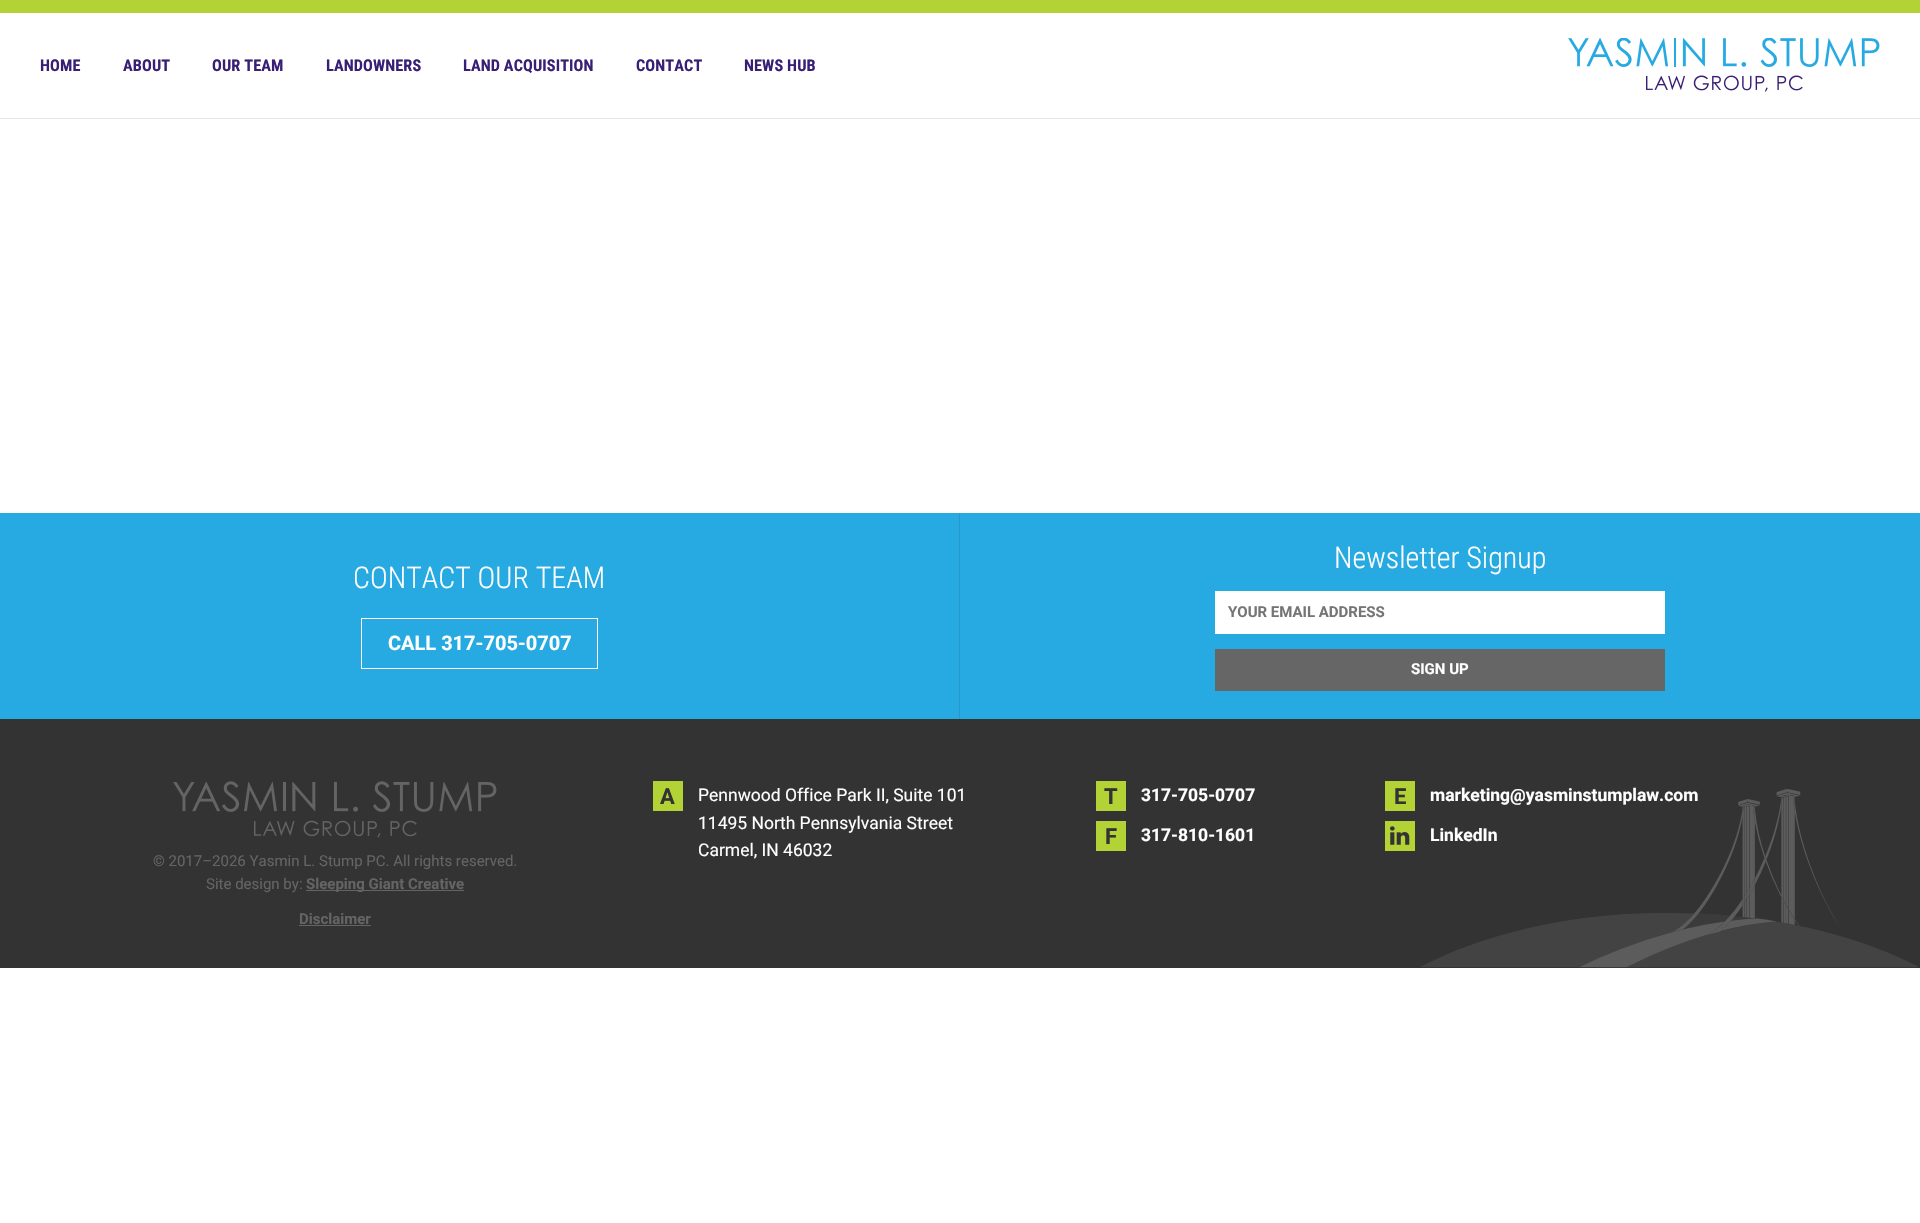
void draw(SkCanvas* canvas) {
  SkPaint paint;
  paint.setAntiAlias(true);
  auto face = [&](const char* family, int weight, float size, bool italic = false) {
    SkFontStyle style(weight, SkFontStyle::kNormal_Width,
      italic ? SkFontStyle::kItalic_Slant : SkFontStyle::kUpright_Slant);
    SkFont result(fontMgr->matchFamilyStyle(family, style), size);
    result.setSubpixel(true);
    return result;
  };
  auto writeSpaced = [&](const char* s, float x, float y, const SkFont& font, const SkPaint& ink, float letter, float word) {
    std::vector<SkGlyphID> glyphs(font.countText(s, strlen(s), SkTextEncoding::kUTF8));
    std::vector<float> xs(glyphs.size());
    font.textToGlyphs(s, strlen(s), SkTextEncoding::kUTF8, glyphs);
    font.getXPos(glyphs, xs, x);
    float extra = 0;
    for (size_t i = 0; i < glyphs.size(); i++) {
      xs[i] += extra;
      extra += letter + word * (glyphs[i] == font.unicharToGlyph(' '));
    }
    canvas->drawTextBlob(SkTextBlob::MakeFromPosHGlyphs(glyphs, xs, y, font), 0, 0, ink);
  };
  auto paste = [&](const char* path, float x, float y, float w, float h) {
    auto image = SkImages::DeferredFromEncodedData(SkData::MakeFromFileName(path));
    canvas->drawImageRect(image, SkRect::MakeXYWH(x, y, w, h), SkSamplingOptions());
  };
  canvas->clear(0xffffffff);
  paint.setColor(0xffb2d235);
  canvas->drawRect(SkRect::MakeXYWH(0, 0, 1920, 13), paint);
  paint.setColor(0xffe6e6e6);
  canvas->drawRect(SkRect::MakeXYWH(0, 118, 1920, 1), paint);
  paste("img/1.png", 1568, 38, 312, 54);
  paint.setColor(0xff27aae1);
  canvas->drawRect(SkRect::MakeXYWH(0, 513, 1920, 206), paint);
  paint.setColor(0xff2699ca);
  canvas->drawRect(SkRect::MakeXYWH(959, 513, 1, 206), paint);
  paint.setStroke(true);
  paint.setStrokeWidth(1);
  paint.setColor(0xffffffff);
  canvas->drawRect(SkRect::MakeXYWH(361.5f, 618.5f, 236, 50), paint);
  paint.setStroke(false);
  {
    const struct { float x, y, w, h; SkColor color; } items[] = {
      {1215, 591, 450, 43, 0xffffffff},
      {1215, 649, 450, 42, 0xff666666},
      {0, 719, 1920, 249, 0xff333333},
    };
    for (auto [x, y, w, h, color] : items) {
      paint.setColor(color);
      canvas->drawRect(SkRect::MakeXYWH(x, y, w, h), paint);
    }
  }
  paste("img/2.png", 1421, 789, 497, 179);
  {
    const struct { float x, y, w, h; SkColor color; } items[] = {
      {653, 781, 30, 30, 0xffb2d235},
      {1096, 781, 30, 30, 0xffb2d235},
      {1096, 821, 30, 30, 0xffb2d235},
      {1385, 781, 30, 30, 0xffb2d235},
      {1385, 821, 30, 30, 0xffb2d235},
    };
    for (auto [x, y, w, h, color] : items) {
      paint.setColor(color);
      canvas->drawRect(SkRect::MakeXYWH(x, y, w, h), paint);
    }
  }
  paste("img/3.png", 1390, 826, 20, 19);
  paste("img/4.png", 173, 781, 324, 57);
  paint.setColor(0xff646464);
  canvas->drawRect(SkRect::MakeXYWH(306, 890, 158, 1), paint);
  canvas->drawRect(SkRect::MakeXYWH(299, 925, 72, 1), paint);
  auto f0 = face("Roboto Condensed", 700, 16.25f);
  paint.setColor(0xff381f75);
  {
    const struct { const char* s; float x, y; } items[] = {
      {"HOME", 40, 71},
      {"ABOUT", 123, 71},
      {"OUR TEAM", 212, 71},
      {"LANDOWNERS", 326, 71},
      {"LAND ACQUISITION", 463, 71},
      {"CONTACT", 636, 71},
      {"NEWS HUB", 744, 71},
    };
    for (auto [s, x, y] : items) {
      writeSpaced(s, x, y, f0, paint, 0.1f, 0);
    }
  }
  auto f1 = face("Roboto Condensed", 300, 30);
  paint.setColor(0xffffffff);
  canvas->drawString("CONTACT OUR TEAM", 353, 588, f1, paint);
  auto f2 = face("Roboto", 700, 20);
  canvas->drawString("CALL 317-705-0707", 388, 650, f2, paint);
  canvas->drawString("Newsletter Signup", 1334, 568, f1, paint);
  auto f3 = face("Roboto", 700, 15);
  paint.setColor(0xff757575);
  canvas->drawString("YOUR EMAIL ADDRESS", 1228, 617, f3, paint);
  paint.setColor(0xffffffff);
  canvas->drawString("SIGN UP", 1411, 674, f3, paint);
  auto f4 = face("Roboto", 700, 22);
  paint.setColor(0xff333333);
  canvas->drawString("A", 660, 804, f4, paint);
  auto f5 = face("Roboto", 400, 17.5f);
  paint.setColor(0xffffffff);
  {
    const struct { const char* s; float x, y; } items[] = {
      {"Pennwood Office Park II, Suite 101", 698, 801},
      {"11495 North Pennsylvania Street", 698, 829},
      {"Carmel, IN 46032", 698, 856},
    };
    for (auto [s, x, y] : items) {
      canvas->drawString(s, x, y, f5, paint);
    }
  }
  paint.setColor(0xff333333);
  canvas->drawString("T", 1104, 804, f4, paint);
  auto f6 = face("Roboto", 700, 17.5f);
  paint.setColor(0xffffffff);
  canvas->drawString("317-705-0707", 1141, 801, f6, paint);
  paint.setColor(0xff333333);
  canvas->drawString("F", 1105, 844, f4, paint);
  paint.setColor(0xffffffff);
  canvas->drawString("317-810-1601", 1141, 841, f6, paint);
  paint.setColor(0xff333333);
  canvas->drawString("E", 1394, 804, f4, paint);
  paint.setColor(0xffffffff);
  canvas->drawString("marketing@yasminstumplaw.com", 1430, 801, f6, paint);
  canvas->drawString("LinkedIn", 1430, 841, f6, paint);
  auto f7 = face("Roboto", 400, 15);
  paint.setColor(0xff646464);
  canvas->drawString("© 2017–2026 Yasmin L. Stump PC. All rights reserved.", 153, 866, f7, paint);
  canvas->drawString("Site design by:", 206, 889, f7, paint);
  canvas->drawString("Sleeping Giant Creative", 306, 889, f3, paint);
  canvas->drawString("Disclaimer", 299, 924, f3, paint);
}
